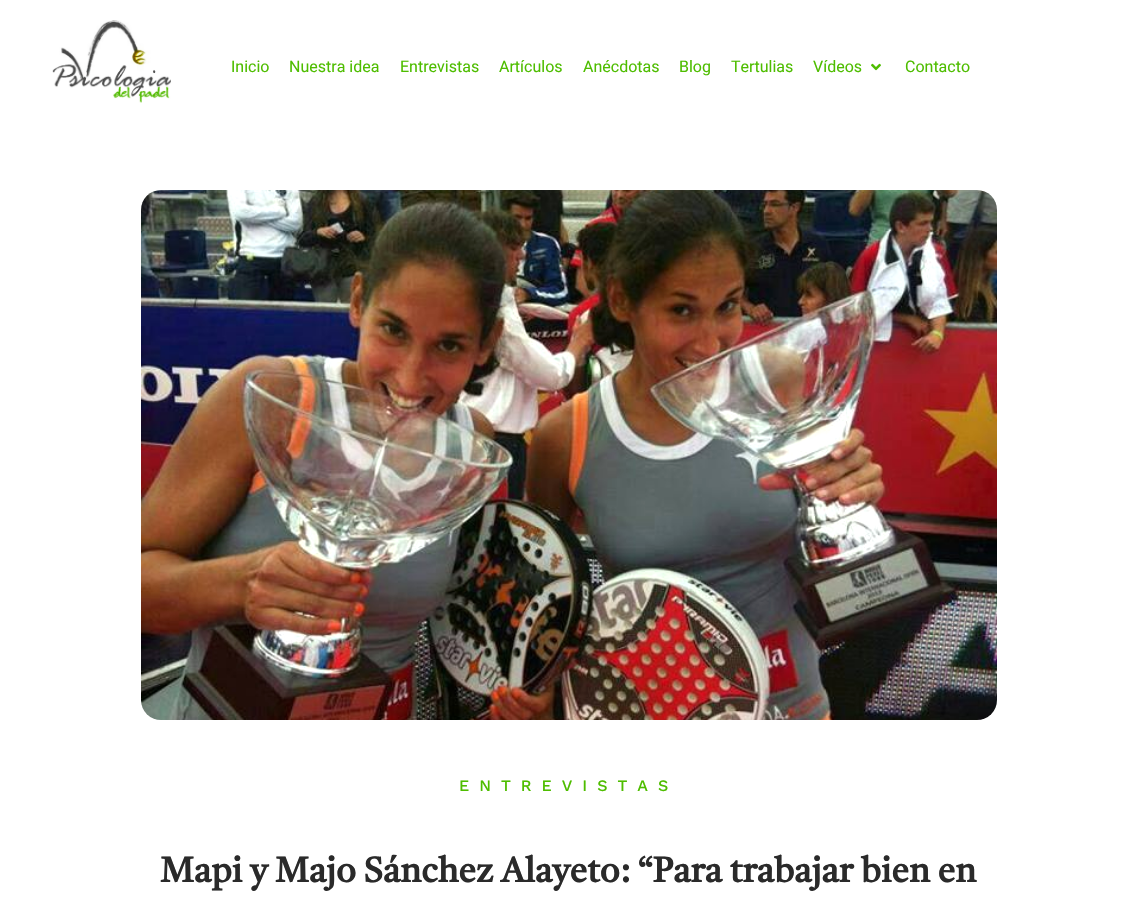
void draw(SkCanvas* canvas) {
  SkPaint paint;
  paint.setAntiAlias(true);
  auto face = [&](const char* family, int weight, float size, bool italic = false) {
    SkFontStyle style(weight, SkFontStyle::kNormal_Width,
      italic ? SkFontStyle::kItalic_Slant : SkFontStyle::kUpright_Slant);
    SkFont result(fontMgr->matchFamilyStyle(family, style), size);
    result.setSubpixel(true);
    return result;
  };
  auto writeSpaced = [&](const char* s, float x, float y, const SkFont& font, const SkPaint& ink, float letter, float word) {
    std::vector<SkGlyphID> glyphs(font.countText(s, strlen(s), SkTextEncoding::kUTF8));
    std::vector<float> xs(glyphs.size());
    font.textToGlyphs(s, strlen(s), SkTextEncoding::kUTF8, glyphs);
    font.getXPos(glyphs, xs, x);
    float extra = 0;
    for (size_t i = 0; i < glyphs.size(); i++) {
      xs[i] += extra;
      extra += letter + word * (glyphs[i] == font.unicharToGlyph(' '));
    }
    canvas->drawTextBlob(SkTextBlob::MakeFromPosHGlyphs(glyphs, xs, y, font), 0, 0, ink);
  };
  auto paste = [&](const char* path, float x, float y, float w, float h) {
    auto image = SkImages::DeferredFromEncodedData(SkData::MakeFromFileName(path));
    canvas->drawImageRect(image, SkRect::MakeXYWH(x, y, w, h), SkSamplingOptions());
  };
  canvas->clear(0xffffffff);
  paste("img/1.png", 52, 20, 119, 83);
  paste("img/2.png", 871, 63, 10, 8);
  paste("img/3.png", 141, 190, 856, 530);
  auto f0 = face("Roboto", 400, 16);
  paint.setColor(0xff4ebd00);
  {
    const struct { const char* s; float x, y; } items[] = {
      {"Inicio", 231, 72},
      {"Nuestra idea", 289, 72},
      {"Entrevistas", 400, 72},
      {"Artículos", 499, 72},
      {"Anécdotas", 583, 72},
      {"Blog", 679, 72},
      {"Tertulias", 731, 72},
      {"Vídeos", 813, 72},
      {"Contacto", 905, 72},
    };
    for (auto [s, x, y] : items) {
      canvas->drawString(s, x, y, f0, paint);
    }
  }
  auto f1 = face("Work Sans", 500, 16);
  writeSpaced("ENTREVISTAS", 459, 791, f1, paint, 10, 0);
  auto f2 = face("Castoro", 700, 35);
  paint.setColor(0xff2a2a2a);
  canvas->drawString("Mapi y Majo Sánchez Alayeto: “Para trabajar bien en", 160, 882, f2, paint);
}
